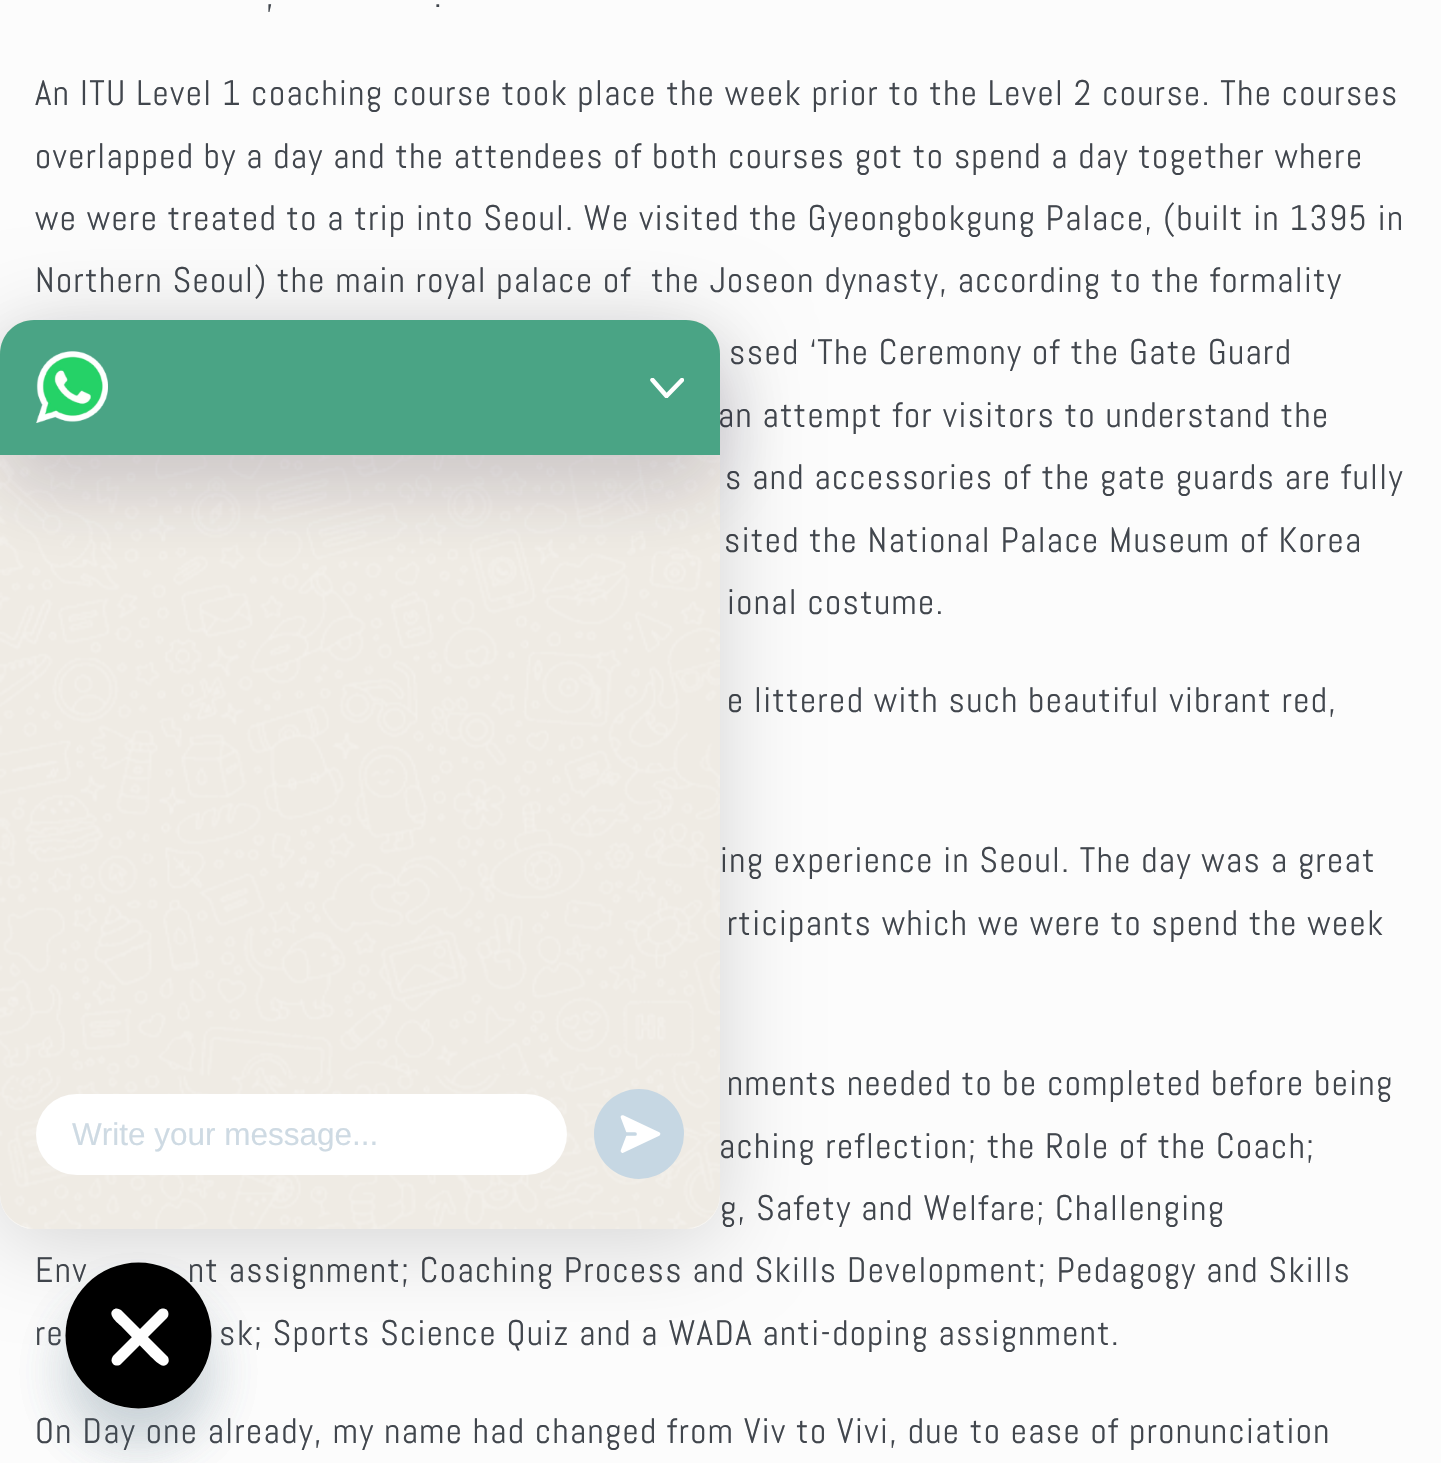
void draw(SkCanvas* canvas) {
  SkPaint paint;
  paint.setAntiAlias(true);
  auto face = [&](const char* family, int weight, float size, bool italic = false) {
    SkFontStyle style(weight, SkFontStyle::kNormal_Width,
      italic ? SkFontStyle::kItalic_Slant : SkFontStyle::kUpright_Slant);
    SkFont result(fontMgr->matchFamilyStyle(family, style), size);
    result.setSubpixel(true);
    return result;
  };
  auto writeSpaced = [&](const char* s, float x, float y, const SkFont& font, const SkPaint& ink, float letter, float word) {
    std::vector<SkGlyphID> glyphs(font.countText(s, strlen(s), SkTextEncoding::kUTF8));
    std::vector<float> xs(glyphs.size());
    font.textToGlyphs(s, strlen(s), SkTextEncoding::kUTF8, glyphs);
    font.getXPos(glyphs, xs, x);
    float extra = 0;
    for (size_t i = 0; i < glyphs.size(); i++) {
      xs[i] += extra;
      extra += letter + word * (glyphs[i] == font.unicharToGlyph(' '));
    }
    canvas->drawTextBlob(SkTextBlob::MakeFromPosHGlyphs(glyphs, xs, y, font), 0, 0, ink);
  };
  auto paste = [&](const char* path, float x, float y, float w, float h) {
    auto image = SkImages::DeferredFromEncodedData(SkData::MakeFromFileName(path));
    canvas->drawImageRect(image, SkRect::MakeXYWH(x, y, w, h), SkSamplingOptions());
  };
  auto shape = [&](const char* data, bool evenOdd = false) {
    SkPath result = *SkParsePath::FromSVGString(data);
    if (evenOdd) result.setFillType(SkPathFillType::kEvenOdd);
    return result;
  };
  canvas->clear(0xfffcfcfc);
  paint.setColor(0x2949687e);
  paint.setMaskFilter(SkMaskFilter::MakeBlur(kNormal_SkBlurStyle, 27));
  canvas->drawRoundRect(SkRect::MakeXYWH(65, 1298, 147, 147), 73.5f, 73.5f, paint);
  paint.setMaskFilter(nullptr);
  auto f0 = face("Abel", 400, 35.45f);
  paint.setColor(0xff41464d);
  {
    const struct { const char* s; float x, y; } items[] = {
      {",", 266, 7},
      {".", 434, 7},
      {"An ITU Level 1 coaching course took place the week prior to the Level 2 course. The courses", 35, 105},
      {"overlapped by a day and the attendees of both courses got to spend a day together where", 35, 168},
      {"we were treated to a trip into Seoul. We visited the Gyeongbokgung Palace, (built in 1395 in", 35, 230},
      {"Northern Seoul) the main royal palace of  the Joseon dynasty, according to the formality", 35, 292},
      {"ssed ‘The Ceremony of the Gate Guard", 729, 364},
      {"an attempt for visitors to understand the", 718, 427},
      {"s and accessories of the gate guards are fully", 725, 489},
      {"sited the National Palace Museum of Korea", 724, 552},
      {"ional costume.", 727, 614},
      {"e littered with such beautiful vibrant red,", 727, 712},
      {"ing experience in Seoul. The day was a great", 720, 872},
      {"rticipants which we were to spend the week", 727, 935},
      {"nments needed to be completed before being", 727, 1095},
      {"aching reflection; the Role of the Coach;", 719, 1158},
      {"g, Safety and Welfare; Challenging", 720, 1220},
      {"Env", 35, 1282},
      {"nt assignment; Coaching Process and Skills Development; Pedagogy and Skills", 188, 1282},
      {"re", 35, 1345},
      {"sk; Sports Science Quiz and a WADA anti-doping assignment.", 219, 1345},
      {"On Day one already, my name had changed from Viv to Vivi, due to ease of pronunciation", 35, 1443},
    };
    for (auto [s, x, y] : items) {
      writeSpaced(s, x, y, f0, paint, 1.42f, 0);
    }
  }
  paint.setColor(0xff000000);
  canvas->drawCircle(138.5f, 1335.5f, 73, paint);
  paint.setColor(0xffffffff);
  canvas->drawPath(shape("M121 1310L168 1357C169 1359 169 1362 168 1363C163 1371 154 1359 151 1357L121 1326C119 1324 107 1315 113 1310C115 1308 118 1308 121 1310Z"), paint);
  canvas->drawPath(shape("M167 1318L121 1364C119 1366 115 1366 113 1364C111 1362 111 1359 113 1356L159 1310C161 1308 165 1308 167 1310C169 1312 169 1316 167 1318Z"), paint);
  paint.setColor(0x29000000);
  paint.setMaskFilter(SkMaskFilter::MakeBlur(kNormal_SkBlurStyle, 45));
  canvas->drawRoundRect(SkRect::MakeXYWH(0, 331, 720, 909), 34, 34, paint);
  paint.setMaskFilter(nullptr);
  canvas->save();
  canvas->clipPath(shape("M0 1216H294V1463H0ZM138.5 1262C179 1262 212 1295 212 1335.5C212 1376 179 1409 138.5 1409C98 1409 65 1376 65 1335.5C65 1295 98 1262 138.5 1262Z", true), true);
  paint.setColor(0x2949687e);
  paint.setMaskFilter(SkMaskFilter::MakeBlur(kNormal_SkBlurStyle, 27));
  canvas->drawRoundRect(SkRect::MakeXYWH(65, 1298, 147, 147), 73.5f, 73.5f, paint);
  paint.setMaskFilter(nullptr);
  canvas->restore();
  paint.setColor(0xffffffff);
  canvas->drawRoundRect(SkRect::MakeXYWH(0, 320, 720, 909), 34, 34, paint);
  paste("img/2.png", 0, 320, 720, 909);
  paint.setColor(0xffc6d7e3);
  canvas->drawCircle(639, 1134, 45, paint);
  paint.setColor(0xffffffff);
  canvas->drawPath(shape("M658.5 1134L622.5 1151L629 1134L622.5 1117Z"), paint);
  paint.setStroke(true);
  paint.setStrokeWidth(3.7f);
  paint.setStrokeCap(SkPaint::kRound_Cap);
  paint.setStrokeJoin(SkPaint::kRound_Join);
  canvas->drawPath(shape("M658.5 1134L622.5 1151L629 1134L622.5 1117Z"), paint);
  paint.setColor(0xffc6d7e3);
  canvas->drawPath(shape("M635 1134H623.5"), paint);
  paint.setStroke(false);
  paint.setColor(0xffffffff);
  canvas->drawRoundRect(SkRect::MakeXYWH(36, 1094, 531, 81), 40.5f, 40.5f, paint);
  auto f1 = face("Liberation Sans", 400, 31.5f);
  paint.setColor(0xffcedae3);
  canvas->drawString("Write your message...", 72, 1145, f1, paint);
  paint.setColor(0x291a0e35);
  paint.setMaskFilter(SkMaskFilter::MakeBlur(kNormal_SkBlurStyle, 36));
  canvas->drawRoundRect(SkRect::MakeXYWH(0, 356, 720, 135), 34, 34, paint);
  paint.setMaskFilter(nullptr);
  paint.setColor(0xff4aa485);
  canvas->drawPath(shape("M34 320H686C705 320 720 335 720 354V455H0V354C0 335 15 320 34 320Z"), paint);
  canvas->save();
  canvas->clipRect(SkRect::MakeXYWH(650, 378, 34, 20));
  paint.setStroke(true);
  paint.setStrokeWidth(4.5f);
  paint.setColor(0xffffffff);
  canvas->drawPath(shape("M652.5 380L666.5 396L682 380"), paint);
  canvas->restore();
  paste("img/1.png", 36, 351, 72, 72);
}
